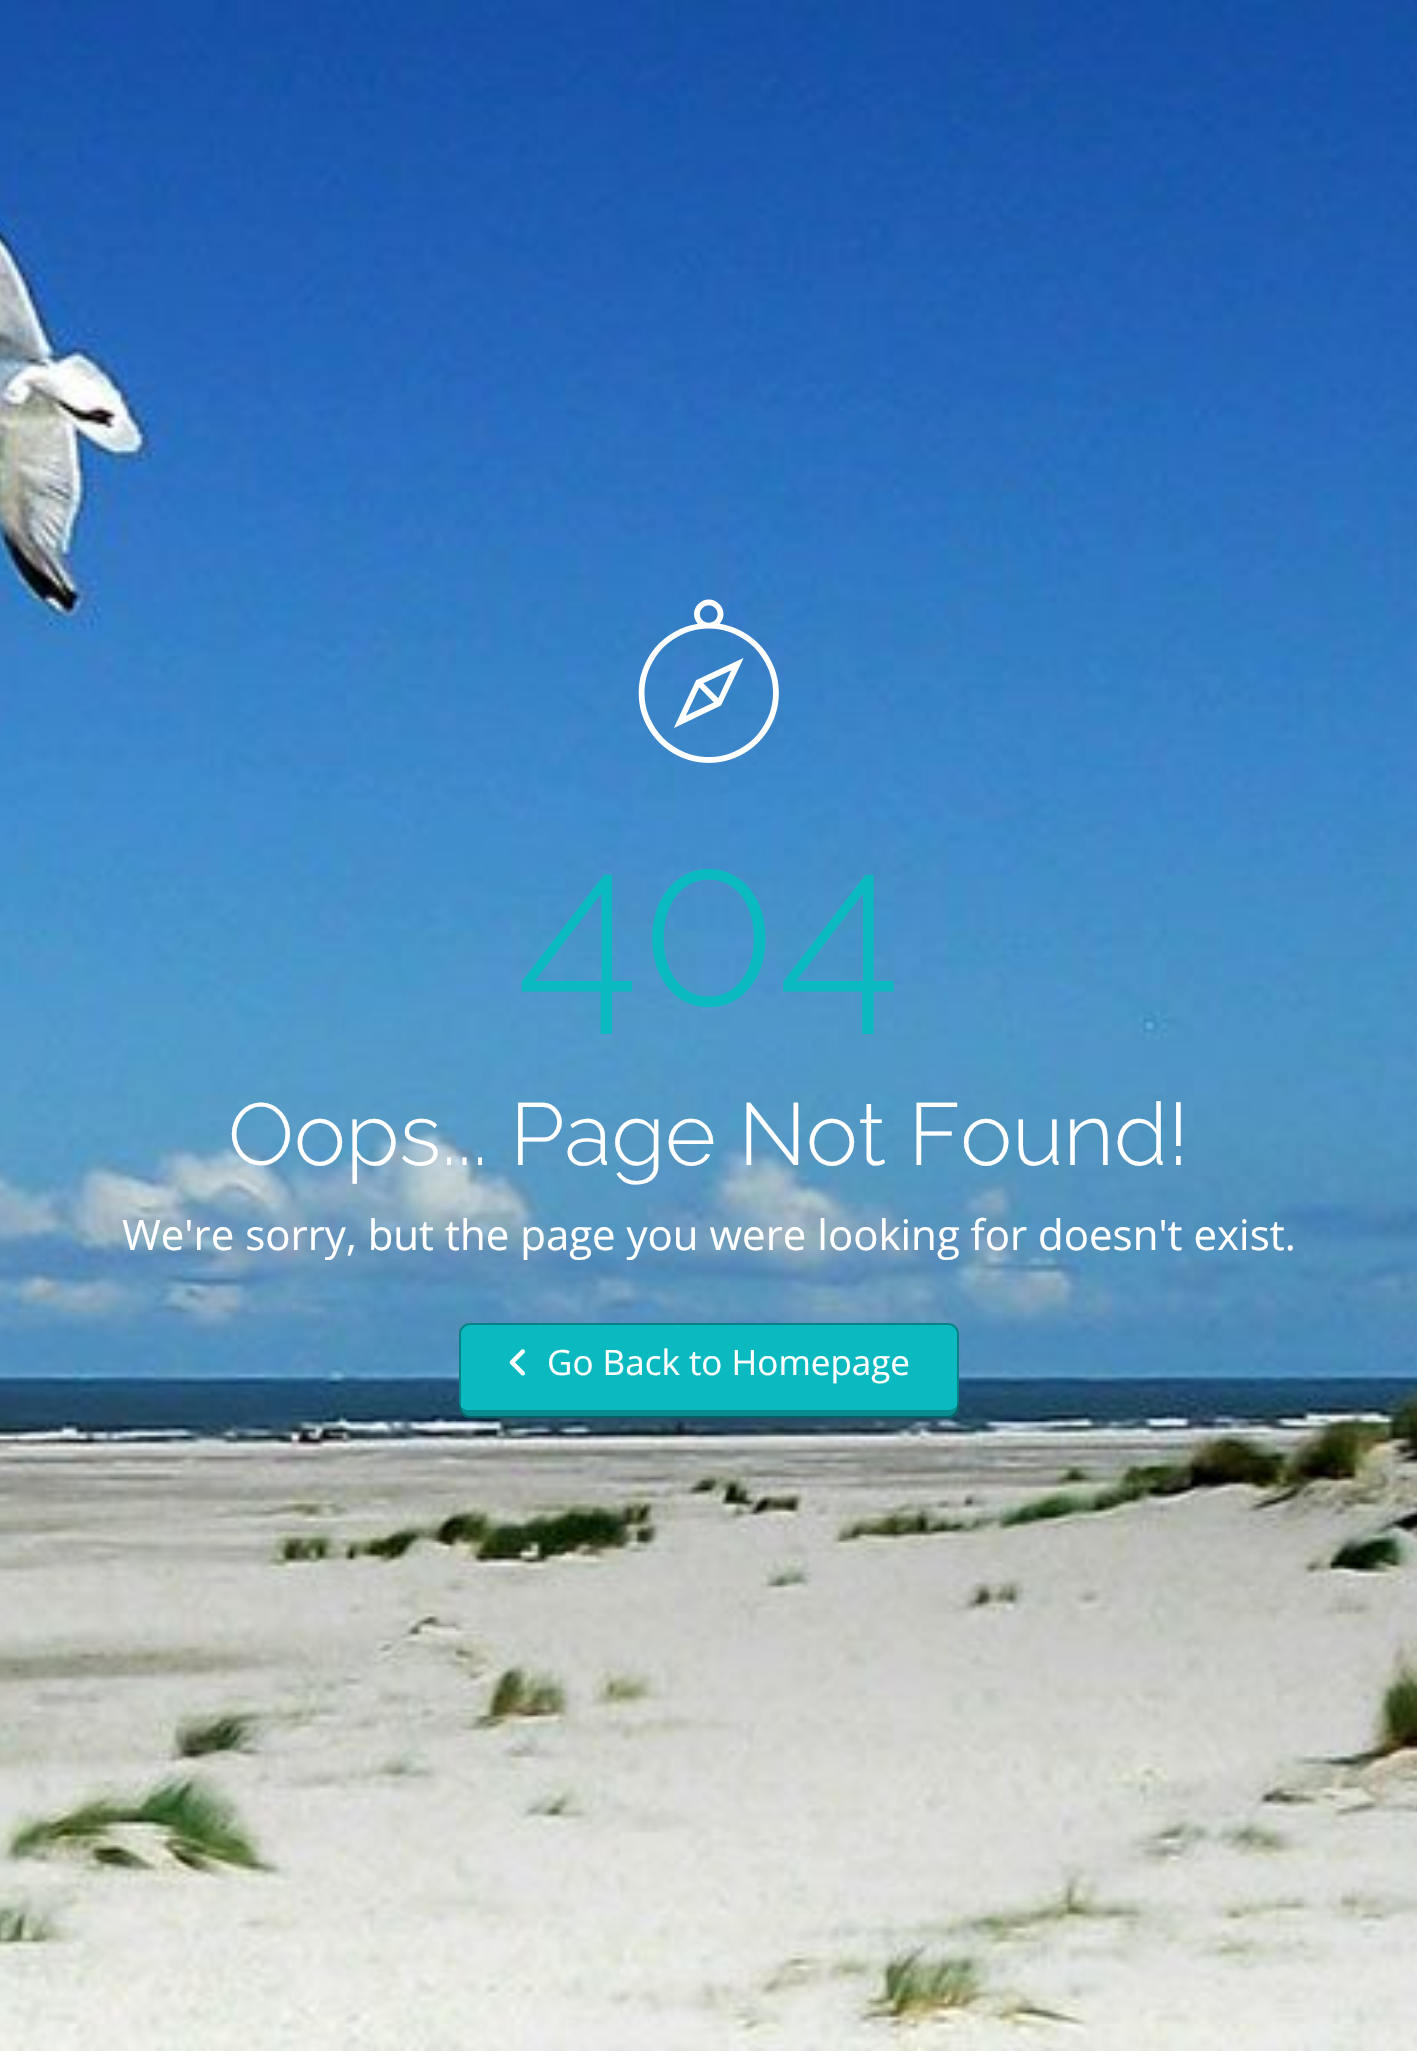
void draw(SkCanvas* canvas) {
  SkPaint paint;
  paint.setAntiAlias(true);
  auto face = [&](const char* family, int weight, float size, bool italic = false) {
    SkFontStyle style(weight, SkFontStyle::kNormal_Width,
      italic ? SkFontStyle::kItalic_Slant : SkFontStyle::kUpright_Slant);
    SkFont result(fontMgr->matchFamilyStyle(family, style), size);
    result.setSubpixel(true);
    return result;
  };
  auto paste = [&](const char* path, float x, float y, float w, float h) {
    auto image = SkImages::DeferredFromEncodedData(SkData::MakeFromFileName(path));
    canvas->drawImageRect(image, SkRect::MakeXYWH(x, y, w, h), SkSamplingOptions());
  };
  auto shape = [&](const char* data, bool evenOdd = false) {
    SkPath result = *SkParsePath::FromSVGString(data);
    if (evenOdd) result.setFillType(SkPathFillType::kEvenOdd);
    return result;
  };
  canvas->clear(0xffffffff);
  paste("img/1.png", 0, 0, 1417, 2051);
  paste("img/2.png", 638, 599, 141, 164);
  paint.setColor(0xff0bbac0);
  canvas->drawRoundRect(SkRect::MakeXYWH(459, 1323, 500, 95), 11, 11, paint);
  paint.setStroke(true);
  paint.setStrokeWidth(2);
  paint.setColor(0x4d000000);
  canvas->drawRoundRect(SkRect::MakeXYWH(460, 1324, 498, 93), 10, 10, paint);
  paint.setStroke(false);
  paint.setColor(0x40000000);
  canvas->drawPath(shape("M459 1404V1407C459 1413 464 1418 470 1418H948C954 1418 959 1413 959 1407V1400C959 1406 954 1410 948 1410H469C465 1410 461 1408 459 1404Z"), paint);
  paste("img/3.png", 509, 1349, 16, 27);
  auto f0 = face("Raleway", 300, 228);
  paint.setColor(0xff0bbac0);
  canvas->drawString("404", 517, 1005, f0, paint);
  auto f1 = face("Raleway", 300, 87.5f);
  paint.setColor(0xffffffff);
  canvas->drawString("Oops... Page Not Found!", 228, 1165, f1, paint);
  auto f2 = face("Open Sans", 400, 42);
  canvas->drawString("We're sorry, but the page you were looking for doesn't exist.", 122, 1250, f2, paint);
  auto f3 = face("Open Sans", 400, 35);
  canvas->drawString("Go Back to Homepage", 547, 1375, f3, paint);
}
